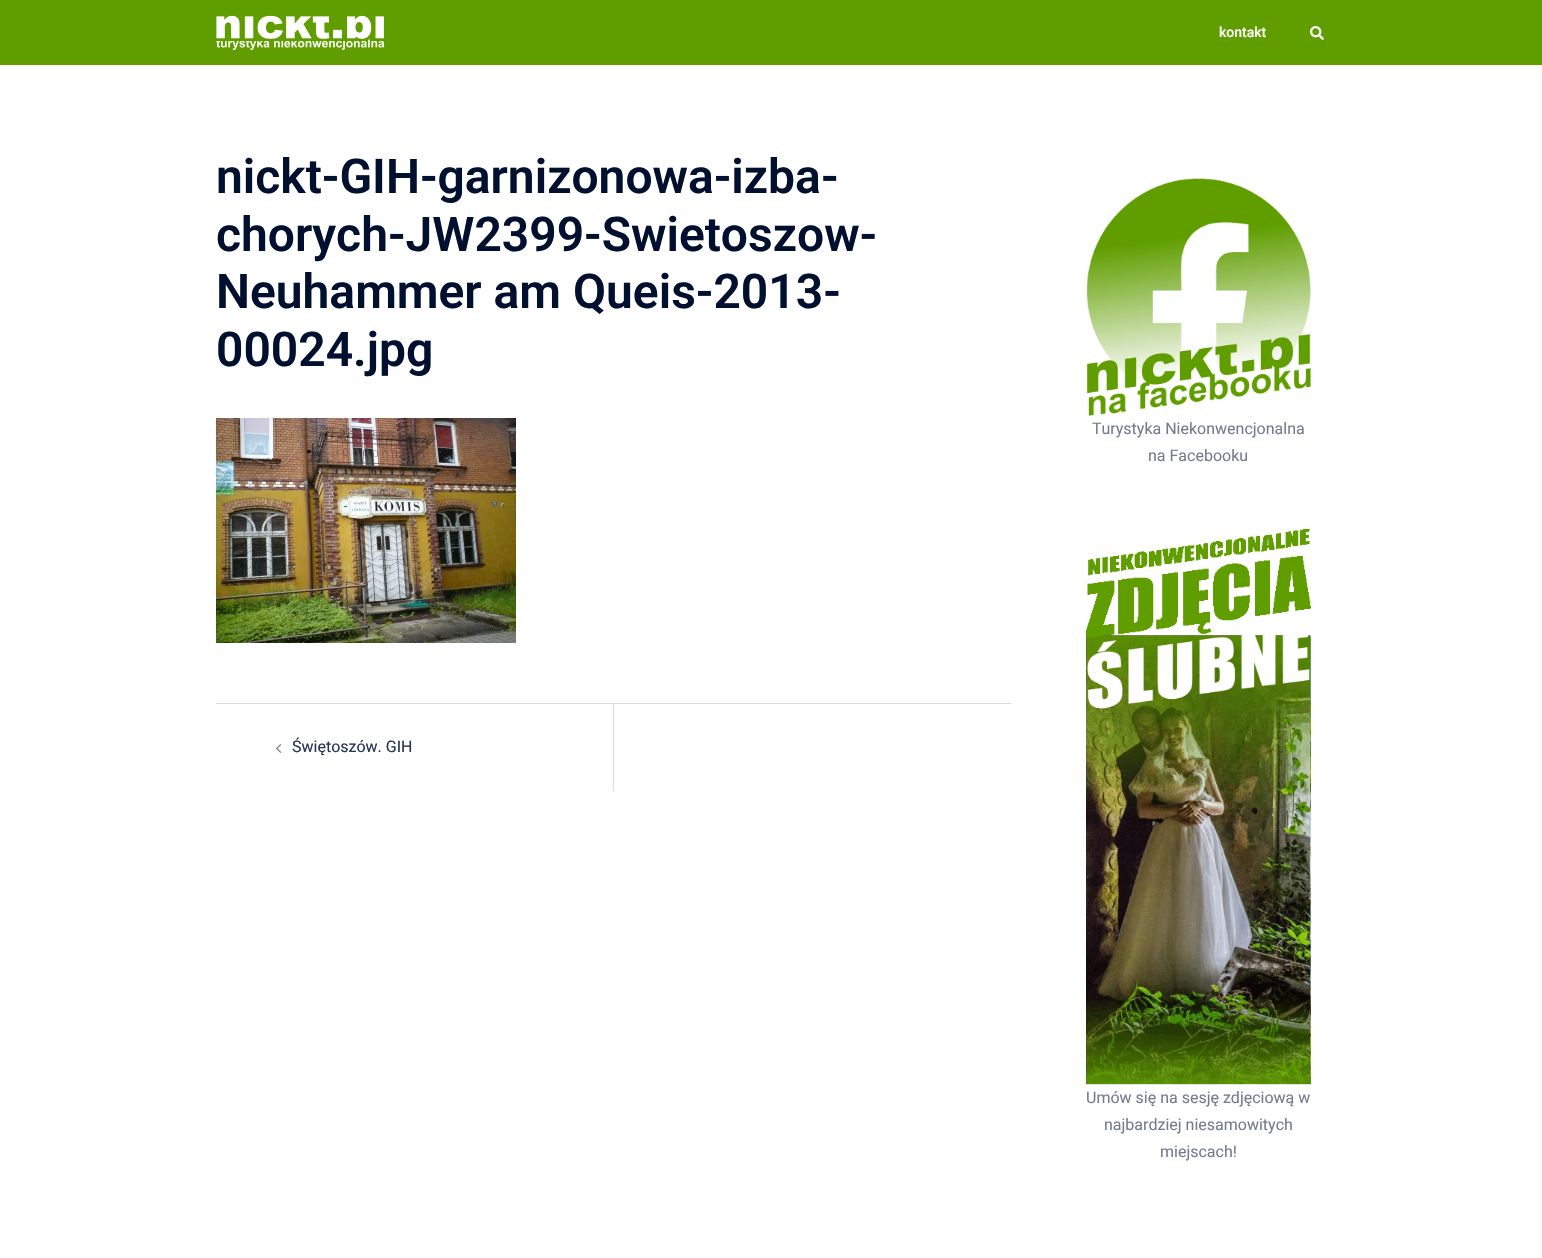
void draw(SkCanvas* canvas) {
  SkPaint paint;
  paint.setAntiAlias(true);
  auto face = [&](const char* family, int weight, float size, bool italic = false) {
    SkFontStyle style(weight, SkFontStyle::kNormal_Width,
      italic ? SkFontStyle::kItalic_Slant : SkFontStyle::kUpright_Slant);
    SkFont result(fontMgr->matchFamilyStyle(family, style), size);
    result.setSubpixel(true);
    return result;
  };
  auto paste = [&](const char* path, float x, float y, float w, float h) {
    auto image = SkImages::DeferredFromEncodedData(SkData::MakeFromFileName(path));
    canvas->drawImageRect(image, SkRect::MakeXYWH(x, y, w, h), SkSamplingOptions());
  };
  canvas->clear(0xffffffff);
  paint.setColor(0xff609e00);
  canvas->drawRect(SkRect::MakeXYWH(0, 0, 1542, 65), paint);
  paste("img/1.png", 216, 15, 169, 35);
  paste("img/2.png", 1310, 26, 14, 14);
  paste("img/3.png", 216, 418, 300, 225);
  paint.setColor(0xffdbdbdb);
  canvas->drawRect(SkRect::MakeXYWH(216, 703, 795, 1), paint);
  canvas->drawRect(SkRect::MakeXYWH(613, 704, 1, 87), paint);
  paste("img/4.png", 276, 744, 6, 9);
  paste("img/5.png", 1086, 178, 225, 238);
  paste("img/6.png", 1086, 529, 225, 556);
  auto f0 = face("Roboto", 500, 14);
  paint.setColor(0xffffffff);
  canvas->drawString("kontakt", 1219, 37, f0, paint);
  auto f1 = face("Roboto", 600, 48);
  paint.setColor(0xff00102e);
  {
    const struct { const char* s; float x, y; } items[] = {
      {"nickt-GIH-garnizonowa-izba-", 216, 193},
      {"chorych-JW2399-Swietoszow-", 216, 251},
      {"Neuhammer am Queis-2013-", 216, 308},
      {"00024.jpg", 216, 366},
    };
    for (auto [s, x, y] : items) {
      canvas->drawString(s, x, y, f1, paint);
    }
  }
  auto f2 = face("Roboto", 400, 16);
  paint.setColor(0xff233452);
  canvas->drawString("Świętoszów. GIH", 292, 752, f2, paint);
  paint.setColor(0xff737c8c);
  {
    const struct { const char* s; float x, y; } items[] = {
      {"Turystyka Niekonwencjonalna", 1092, 434},
      {"na Facebooku", 1148, 461},
      {"Umów się na sesję zdjęciową w", 1086, 1103},
      {"najbardziej niesamowitych", 1104, 1130},
      {"miejscach!", 1160, 1157},
    };
    for (auto [s, x, y] : items) {
      canvas->drawString(s, x, y, f2, paint);
    }
  }
}
